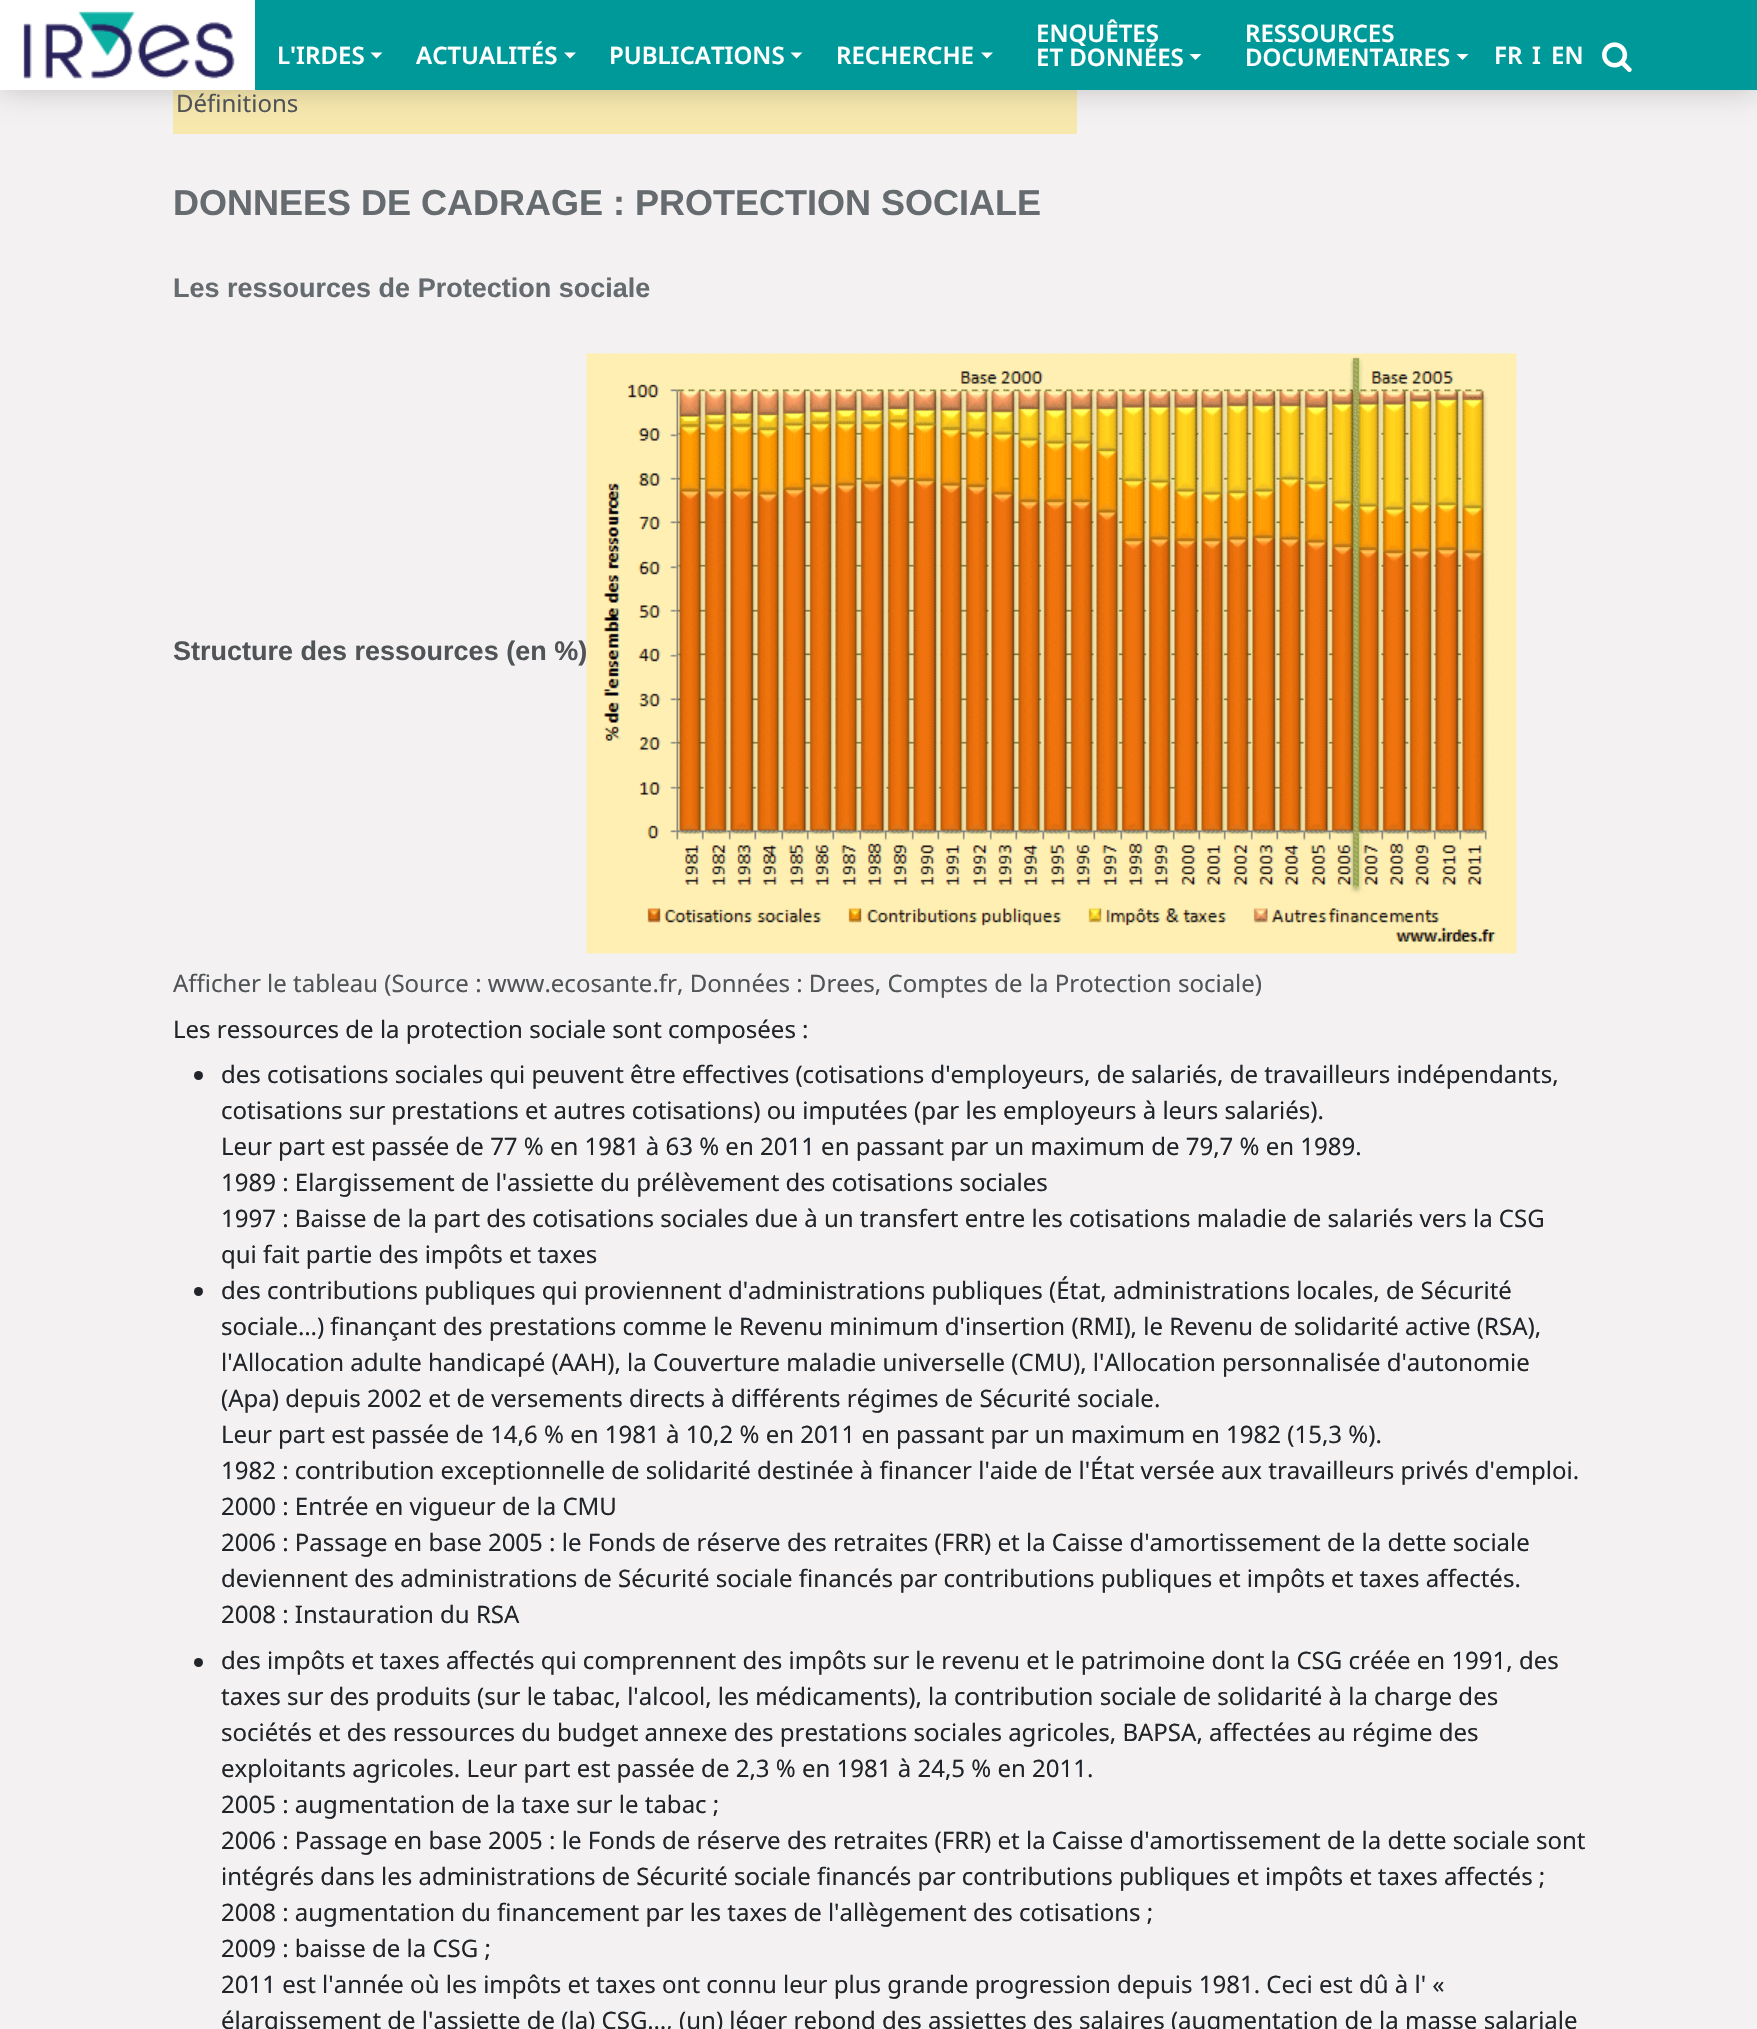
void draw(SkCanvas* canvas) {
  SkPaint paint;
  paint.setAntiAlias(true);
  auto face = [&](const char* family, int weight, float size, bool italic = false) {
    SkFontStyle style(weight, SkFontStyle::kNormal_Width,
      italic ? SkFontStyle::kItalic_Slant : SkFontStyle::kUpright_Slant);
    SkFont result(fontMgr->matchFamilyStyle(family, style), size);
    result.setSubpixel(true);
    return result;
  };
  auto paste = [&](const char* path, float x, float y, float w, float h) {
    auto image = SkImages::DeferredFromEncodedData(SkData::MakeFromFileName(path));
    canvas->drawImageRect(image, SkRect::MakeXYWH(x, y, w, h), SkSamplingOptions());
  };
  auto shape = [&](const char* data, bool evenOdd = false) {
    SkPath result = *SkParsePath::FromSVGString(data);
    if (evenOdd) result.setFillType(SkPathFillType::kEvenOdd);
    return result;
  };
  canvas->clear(0xfff3f1f1);
  paint.setColor(0xfff7e8ae);
  canvas->drawRect(SkRect::MakeXYWH(173, 90, 904, 44), paint);
  paint.setColor(0x33000000);
  paint.setMaskFilter(SkMaskFilter::MakeBlur(kNormal_SkBlurStyle, 15));
  canvas->drawRect(SkRect::MakeXYWH(0, 0, 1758, 90), paint);
  paint.setMaskFilter(nullptr);
  paint.setColor(0xff009999);
  canvas->drawRect(SkRect::MakeXYWH(255, 0, 1502, 90), paint);
  paste("img/1.png", 0, 0, 255, 90);
  paint.setColor(0xffffffff);
  canvas->drawPath(shape("M370.5 52.5H382.5L376.5 58.5Z"), paint);
  canvas->drawPath(shape("M564 52.5H576L570 58.5Z"), paint);
  canvas->drawPath(shape("M790.5 52.5H802.5L796.5 58.5Z"), paint);
  canvas->drawPath(shape("M981 52.5H993L987 58.5Z"), paint);
  canvas->drawPath(shape("M1189.5 54H1201.5L1195.5 60Z"), paint);
  canvas->drawPath(shape("M1456.5 54H1468.5L1462.5 60Z"), paint);
  paste("img/2.png", 1602, 42, 30, 31);
  paste("img/3.png", 586, 353, 931, 601);
  paint.setColor(0xff212529);
  canvas->drawCircle(198.5f, 1075.5f, 4.5f, paint);
  canvas->drawCircle(198.5f, 1291.5f, 4.5f, paint);
  canvas->drawCircle(198.5f, 1662.5f, 4.5f, paint);
  auto f0 = face("Noto Sans", 600, 24);
  paint.setColor(0xffffffff);
  {
    const struct { const char* s; float x, y; } items[] = {
      {"L'IRDES", 277, 64},
      {"ACTUALITÉS", 416, 64},
      {"PUBLICATIONS", 609, 64},
      {"RECHERCHE", 836, 64},
      {"ENQUÊTES", 1036, 42},
      {"ET DONNÉES", 1036, 66},
      {"RESSOURCES", 1245, 42},
      {"DOCUMENTAIRES", 1245, 66},
      {"FR", 1494, 64},
      {"I", 1532, 64},
      {"EN", 1551, 64},
    };
    for (auto [s, x, y] : items) {
      canvas->drawString(s, x, y, f0, paint);
    }
  }
  auto f1 = face("Noto Sans", 400, 24);
  paint.setColor(0xff505457);
  canvas->drawString("Définitions", 176, 112, f1, paint);
  auto f2 = face("Arimo", 700, 36);
  paint.setColor(0xff656b6e);
  canvas->drawString("DONNEES DE CADRAGE : PROTECTION SOCIALE", 173, 215, f2, paint);
  auto f3 = face("Arimo", 700, 27);
  canvas->drawString("Les ressources de Protection sociale", 173, 297, f3, paint);
  paint.setColor(0xff505457);
  canvas->drawString("Structure des ressources (en %)", 173, 660, f3, paint);
  canvas->drawString("Afficher le tableau (Source : www.ecosante.fr, Données : Drees, Comptes de la Protection sociale)", 173, 992, f1, paint);
  paint.setColor(0xff212529);
  {
    const struct { const char* s; float x, y; } items[] = {
      {"Les ressources de la protection sociale sont composées :", 173, 1038},
      {"des cotisations sociales qui peuvent être effectives (cotisations d'employeurs, de salariés, de travailleurs indépendants,", 221, 1083},
      {"cotisations sur prestations et autres cotisations) ou imputées (par les employeurs à leurs salariés).", 221, 1119},
      {"Leur part est passée de 77 % en 1981 à 63 % en 2011 en passant par un maximum de 79,7 % en 1989.", 221, 1155},
      {"1989 : Elargissement de l'assiette du prélèvement des cotisations sociales", 221, 1191},
      {"1997 : Baisse de la part des cotisations sociales due à un transfert entre les cotisations maladie de salariés vers la CSG", 221, 1227},
      {"qui fait partie des impôts et taxes", 221, 1263},
      {"des contributions publiques qui proviennent d'administrations publiques (État, administrations locales, de Sécurité", 221, 1299},
      {"sociale…) finançant des prestations comme le Revenu minimum d'insertion (RMI), le Revenu de solidarité active (RSA),", 221, 1335},
      {"l'Allocation adulte handicapé (AAH), la Couverture maladie universelle (CMU), l'Allocation personnalisée d'autonomie", 221, 1371},
      {"(Apa) depuis 2002 et de versements directs à différents régimes de Sécurité sociale.", 221, 1407},
      {"Leur part est passée de 14,6 % en 1981 à 10,2 % en 2011 en passant par un maximum en 1982 (15,3 %).", 221, 1443},
      {"1982 : contribution exceptionnelle de solidarité destinée à financer l'aide de l'État versée aux travailleurs privés d'emploi.", 221, 1479},
      {"2000 : Entrée en vigueur de la CMU", 221, 1515},
      {"2006 : Passage en base 2005 : le Fonds de réserve des retraites (FRR) et la Caisse d'amortissement de la dette sociale", 221, 1551},
      {"deviennent des administrations de Sécurité sociale financés par contributions publiques et impôts et taxes affectés.", 221, 1587},
      {"2008 : Instauration du RSA", 221, 1623},
      {"des impôts et taxes affectés qui comprennent des impôts sur le revenu et le patrimoine dont la CSG créée en 1991, des", 221, 1669},
      {"taxes sur des produits (sur le tabac, l'alcool, les médicaments), la contribution sociale de solidarité à la charge des", 221, 1705},
      {"sociétés et des ressources du budget annexe des prestations sociales agricoles, BAPSA, affectées au régime des", 221, 1741},
      {"exploitants agricoles. Leur part est passée de 2,3 % en 1981 à 24,5 % en 2011.", 221, 1777},
      {"2005 : augmentation de la taxe sur le tabac ;", 221, 1813},
      {"2006 : Passage en base 2005 : le Fonds de réserve des retraites (FRR) et la Caisse d'amortissement de la dette sociale sont", 221, 1849},
      {"intégrés dans les administrations de Sécurité sociale financés par contributions publiques et impôts et taxes affectés ;", 221, 1885},
      {"2008 : augmentation du financement par les taxes de l'allègement des cotisations ;", 221, 1921},
      {"2009 : baisse de la CSG ;", 221, 1957},
      {"2011 est l'année où les impôts et taxes ont connu leur plus grande progression depuis 1981. Ceci est dû à l' «", 221, 1993},
      {"élargissement de l'assiette de (la) CSG…, (un) léger rebond des assiettes des salaires (augmentation de la masse salariale", 221, 2029},
    };
    for (auto [s, x, y] : items) {
      canvas->drawString(s, x, y, f1, paint);
    }
  }
}
